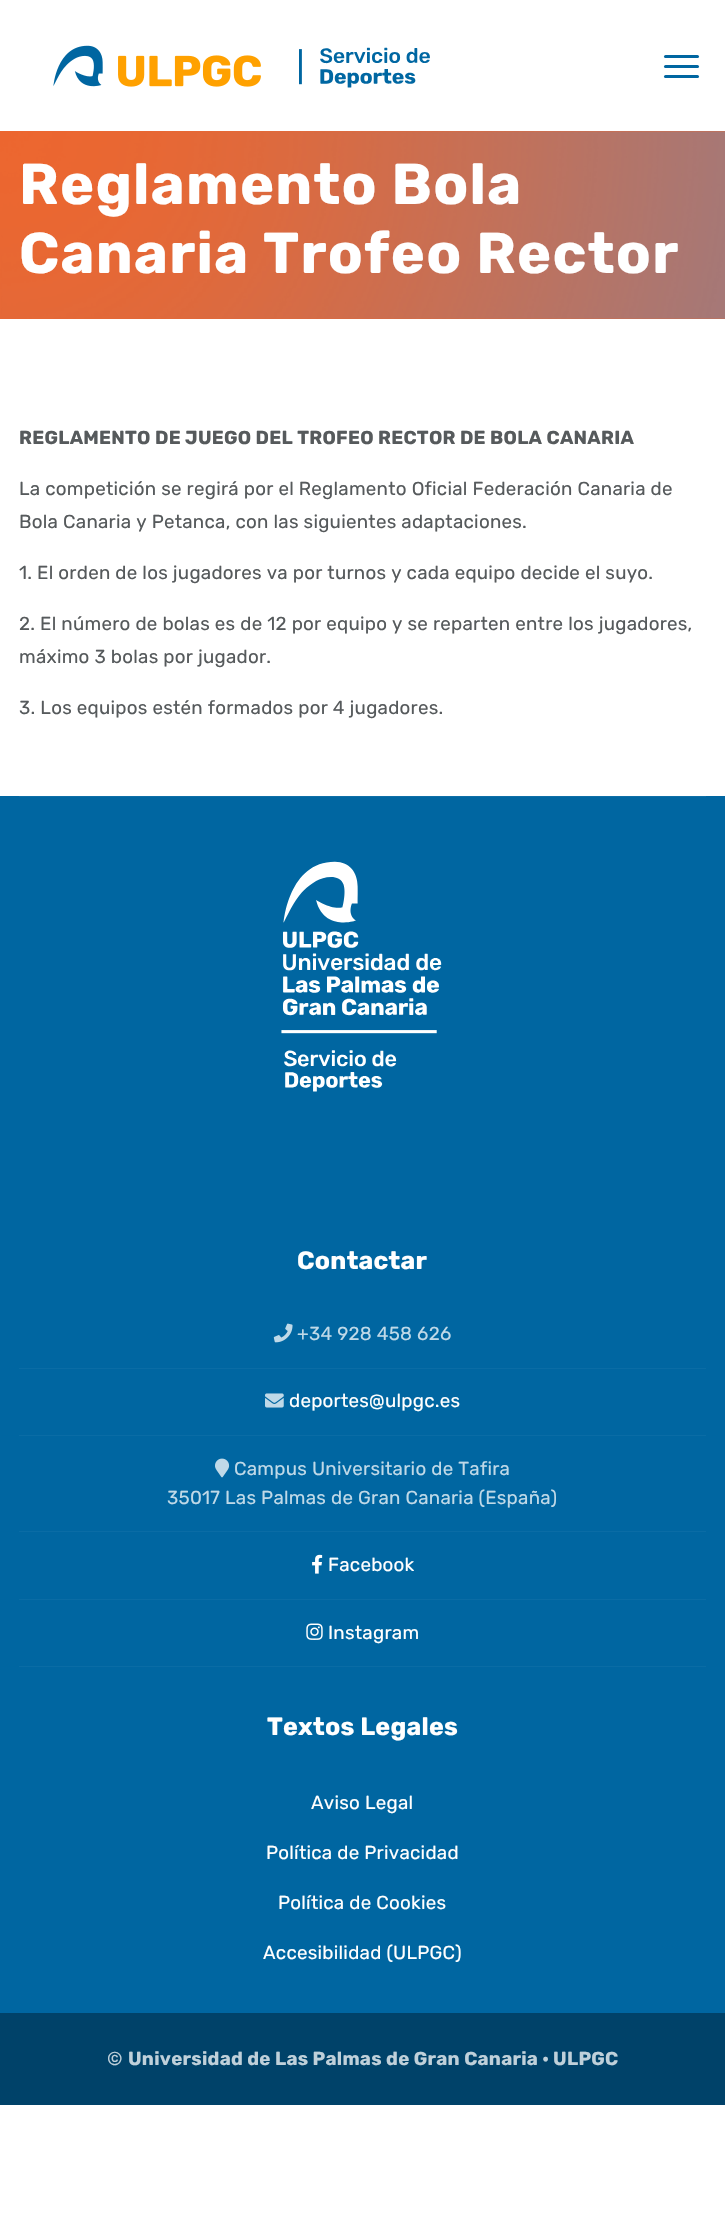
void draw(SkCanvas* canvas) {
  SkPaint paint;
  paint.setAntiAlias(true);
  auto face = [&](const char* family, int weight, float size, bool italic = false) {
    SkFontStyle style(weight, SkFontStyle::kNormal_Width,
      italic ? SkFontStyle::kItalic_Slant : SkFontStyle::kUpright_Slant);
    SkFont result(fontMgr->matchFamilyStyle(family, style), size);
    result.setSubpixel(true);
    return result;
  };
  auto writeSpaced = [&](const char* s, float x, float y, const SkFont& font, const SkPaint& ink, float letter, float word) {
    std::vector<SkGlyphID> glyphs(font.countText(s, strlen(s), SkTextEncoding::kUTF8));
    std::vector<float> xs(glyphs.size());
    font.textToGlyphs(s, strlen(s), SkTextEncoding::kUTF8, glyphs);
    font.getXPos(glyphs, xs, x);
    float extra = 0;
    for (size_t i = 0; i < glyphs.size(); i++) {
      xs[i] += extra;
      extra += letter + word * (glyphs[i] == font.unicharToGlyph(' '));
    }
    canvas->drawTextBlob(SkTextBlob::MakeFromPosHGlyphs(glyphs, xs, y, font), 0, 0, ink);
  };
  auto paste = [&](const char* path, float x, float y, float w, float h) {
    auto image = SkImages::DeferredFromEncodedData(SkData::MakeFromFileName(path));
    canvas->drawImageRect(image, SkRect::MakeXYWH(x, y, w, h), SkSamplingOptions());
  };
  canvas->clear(0xffffffff);
  paste("img/1.png", 53, 45, 208, 42);
  paste("img/2.png", 299, 47, 131, 41);
  paint.setColor(0xff0066a1);
  canvas->drawRoundRect(SkRect::MakeXYWH(664, 65, 35, 3), 1.5f, 1.5f, paint);
  canvas->drawRoundRect(SkRect::MakeXYWH(664, 55, 35, 3), 1.5f, 1.5f, paint);
  canvas->drawRoundRect(SkRect::MakeXYWH(664, 75, 35, 3), 1.5f, 1.5f, paint);
  paint.setColor(0xffec662f);
  canvas->drawRect(SkRect::MakeXYWH(0, 131, 725, 188), paint);
  paste("img/3.png", 0, 131, 725, 188);
  paint.setColor(0xff0066a1);
  canvas->drawRect(SkRect::MakeXYWH(0, 796, 725, 1217), paint);
  paint.setColor(0xff0f6fa7);
  canvas->drawRect(SkRect::MakeXYWH(19, 796, 687, 1), paint);
  paste("img/4.png", 281, 861, 161, 231);
  paint.setColor(0xff0a6ca5);
  canvas->drawRect(SkRect::MakeXYWH(19, 1368, 687, 1), paint);
  paste("img/5.png", 273, 1323, 20, 20);
  canvas->drawRect(SkRect::MakeXYWH(19, 1435, 687, 1), paint);
  paste("img/6.png", 265, 1393, 19, 15);
  canvas->drawRect(SkRect::MakeXYWH(19, 1531, 687, 1), paint);
  paste("img/7.png", 215, 1458, 15, 20);
  canvas->drawRect(SkRect::MakeXYWH(19, 1599, 687, 1), paint);
  paste("img/8.png", 312, 1554, 11, 20);
  canvas->drawRect(SkRect::MakeXYWH(19, 1666, 687, 1), paint);
  paste("img/9.png", 306, 1623, 17, 17);
  paint.setColor(0xff004269);
  canvas->drawRect(SkRect::MakeXYWH(0, 2013, 725, 92), paint);
  auto f0 = face("Rubik", 700, 57.5f);
  paint.setColor(0xffffffff);
  writeSpaced("Reglamento Bola", 19, 204, f0, paint, 1.25f, 0);
  writeSpaced("Canaria Trofeo Rector", 19, 273, f0, paint, 1.25f, 0);
  auto f1 = face("Rubik", 700, 18.75f);
  paint.setColor(0xff565a5c);
  writeSpaced("REGLAMENTO DE JUEGO DEL TROFEO RECTOR DE BOLA CANARIA", 19, 444, f1, paint, 0.25f, 0);
  auto f2 = face("Rubik", 400, 18.75f);
  {
    const struct { const char* s; float x, y; } items[] = {
      {"La competición se regirá por el Reglamento Oficial Federación Canaria de", 19, 495},
      {"Bola Canaria y Petanca, con las siguientes adaptaciones.", 19, 528},
      {"1. El orden de los jugadores va por turnos y cada equipo decide el suyo.", 19, 579},
      {"2. El número de bolas es de 12 por equipo y se reparten entre los jugadores,", 19, 630},
      {"máximo 3 bolas por jugador.", 19, 663},
      {"3. Los equipos estén formados por 4 jugadores.", 19, 714},
    };
    for (auto [s, x, y] : items) {
      writeSpaced(s, x, y, f2, paint, 0.25f, 0);
    }
  }
  auto f3 = face("Rubik", 700, 25);
  paint.setColor(0xffffffff);
  writeSpaced("Contactar", 297, 1269, f3, paint, 0.25f, 0);
  paint.setColor(0xffbfd9e8);
  writeSpaced("+34 928 458 626", 297, 1340, f2, paint, 0.25f, 0);
  paint.setColor(0xffffffff);
  writeSpaced("deportes@ulpgc.es", 289, 1407, f2, paint, 0.25f, 0);
  paint.setColor(0xffbfd9e8);
  writeSpaced("Campus Universitario de Tafira", 234, 1475, f2, paint, 0.25f, 0);
  writeSpaced("35017 Las Palmas de Gran Canaria (España)", 167, 1504, f2, paint, 0.25f, 0);
  paint.setColor(0xffffffff);
  writeSpaced("Facebook", 328, 1571, f2, paint, 0.25f, 0);
  writeSpaced("Instagram", 328, 1639, f2, paint, 0.25f, 0);
  writeSpaced("Textos Legales", 267, 1735, f3, paint, 0.25f, 0);
  {
    const struct { const char* s; float x, y; } items[] = {
      {"Aviso Legal", 311, 1809},
      {"Política de Privacidad", 266, 1859},
      {"Política de Cookies", 278, 1909},
      {"Accesibilidad (ULPGC)", 263, 1959},
    };
    for (auto [s, x, y] : items) {
      writeSpaced(s, x, y, f2, paint, 0.25f, 0);
    }
  }
  paint.setColor(0xffbfd0da);
  writeSpaced("©", 107, 2065, f2, paint, 0.25f, 0);
  writeSpaced("Universidad de Las Palmas de Gran Canaria · ULPGC", 128, 2065, f1, paint, 0.25f, 0);
}
